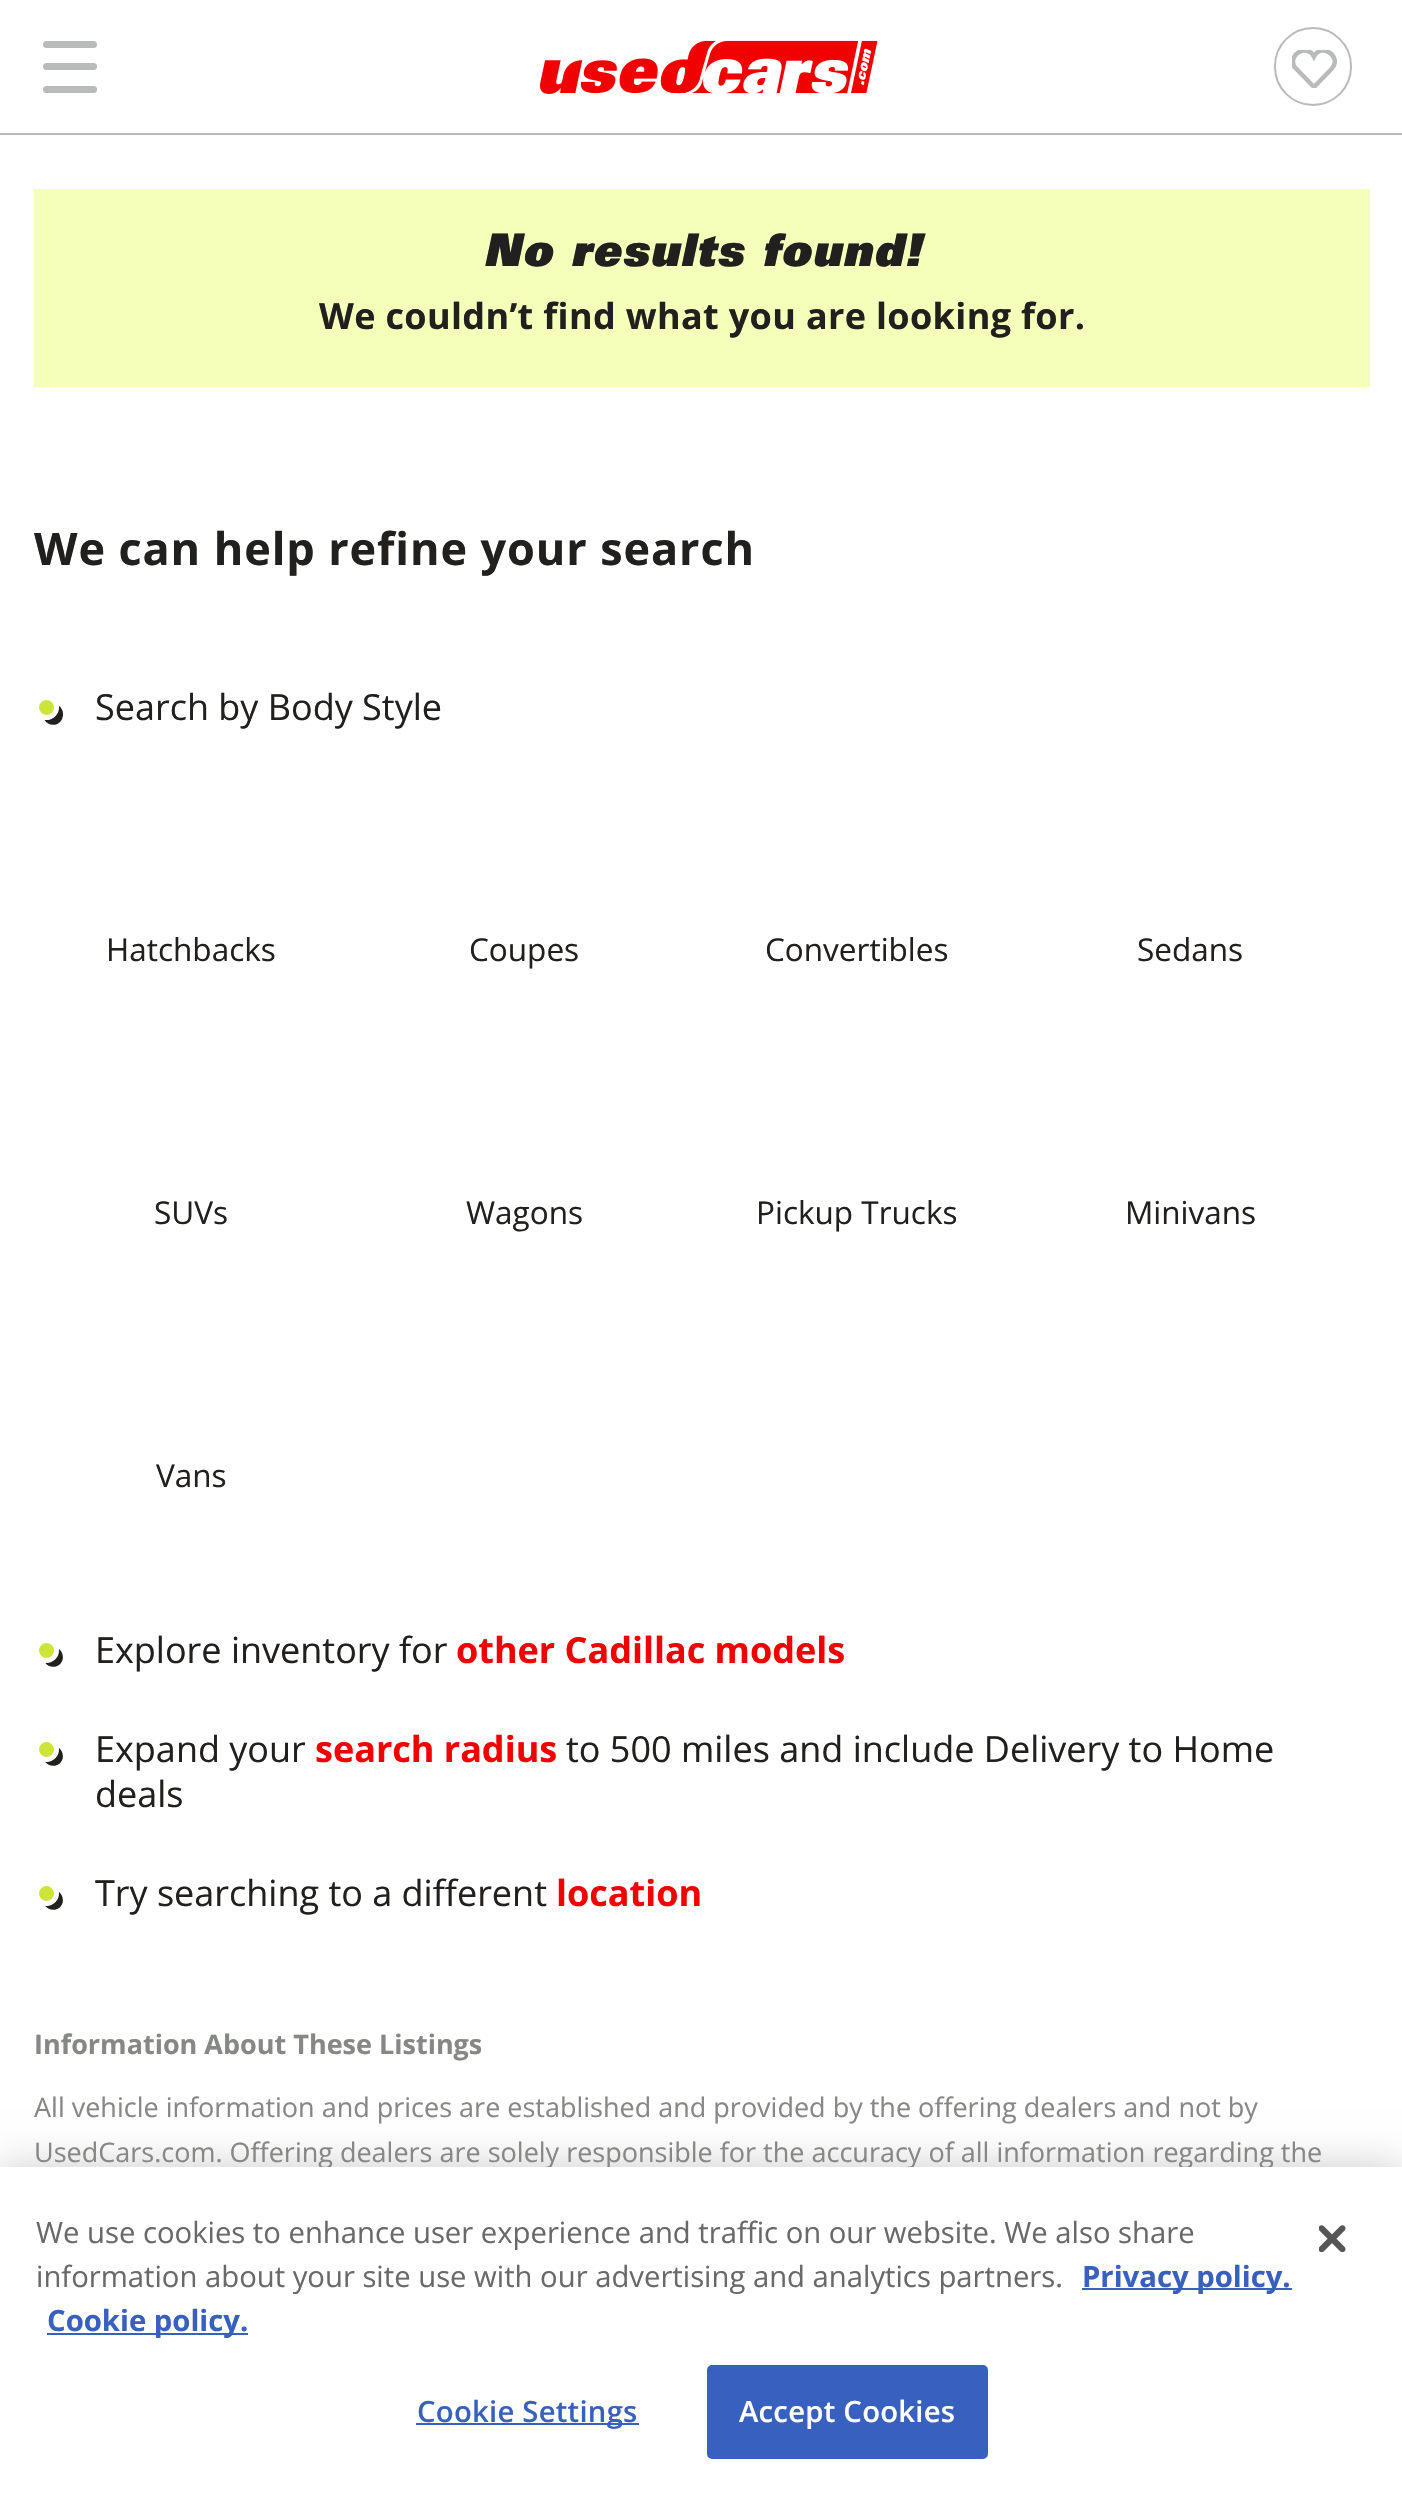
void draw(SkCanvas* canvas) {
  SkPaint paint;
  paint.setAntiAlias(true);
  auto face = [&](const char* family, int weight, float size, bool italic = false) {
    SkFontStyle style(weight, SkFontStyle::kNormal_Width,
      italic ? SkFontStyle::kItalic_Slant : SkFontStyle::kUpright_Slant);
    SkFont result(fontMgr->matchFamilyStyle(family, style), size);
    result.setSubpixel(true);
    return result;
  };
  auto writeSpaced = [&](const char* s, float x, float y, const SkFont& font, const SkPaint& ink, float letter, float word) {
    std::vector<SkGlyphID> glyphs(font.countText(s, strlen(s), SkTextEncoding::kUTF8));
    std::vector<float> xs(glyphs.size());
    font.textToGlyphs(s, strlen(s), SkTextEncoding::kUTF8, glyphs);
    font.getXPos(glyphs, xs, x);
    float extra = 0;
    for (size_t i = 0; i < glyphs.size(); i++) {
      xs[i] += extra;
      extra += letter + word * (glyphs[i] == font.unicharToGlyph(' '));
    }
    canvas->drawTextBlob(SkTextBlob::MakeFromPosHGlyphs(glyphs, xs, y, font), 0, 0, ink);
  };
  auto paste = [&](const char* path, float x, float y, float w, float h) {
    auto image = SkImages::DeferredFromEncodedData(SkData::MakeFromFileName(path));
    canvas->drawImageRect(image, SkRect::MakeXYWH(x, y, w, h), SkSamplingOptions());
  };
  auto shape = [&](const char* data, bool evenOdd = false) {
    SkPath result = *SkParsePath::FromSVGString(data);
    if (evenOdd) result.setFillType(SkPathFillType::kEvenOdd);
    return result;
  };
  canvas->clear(0xffffffff);
  paint.setColor(0xffb9bbba);
  canvas->drawRect(SkRect::MakeXYWH(0, 133, 1402, 2), paint);
  canvas->drawRoundRect(SkRect::MakeXYWH(43, 41, 54, 7), 3.5f, 3.5f, paint);
  canvas->drawRoundRect(SkRect::MakeXYWH(43, 63, 54, 7), 3.5f, 3.5f, paint);
  canvas->drawRoundRect(SkRect::MakeXYWH(43, 86, 54, 7), 3.5f, 3.5f, paint);
  paste("img/1.png", 540, 40, 338, 54);
  paint.setStroke(true);
  paint.setStrokeWidth(2);
  canvas->drawRoundRect(SkRect::MakeXYWH(1275, 28, 76, 77), 38, 38, paint);
  canvas->save();
  canvas->clipRect(SkRect::MakeXYWH(1292, 50, 45, 38));
  paint.setStrokeWidth(4.5f);
  canvas->drawPath(shape("M1331.5 69C1343 57 1321.5 42 1314 56.5C1307.5 43.5 1287.5 54 1294.5 67L1314 87Z"), paint);
  canvas->restore();
  paint.setStroke(false);
  paint.setColor(0xfff5ffba);
  canvas->drawRect(SkRect::MakeXYWH(34, 189, 1336, 198), paint);
  paint.setColor(0xff22201e);
  canvas->drawPath(shape("M44.5 720C47.5 725.5 55.5 726.5 60 722C64.5 717.5 64 709 58.5 705.5C59.5 713.5 52.5 721 44.5 720Z"), paint);
  paint.setColor(0xffcde538);
  canvas->drawCircle(46.5f, 707.5f, 10, paint);
  paint.setStroke(true);
  paint.setStrokeWidth(5);
  paint.setColor(0xffffffff);
  canvas->drawCircle(46.5f, 707.5f, 10, paint);
  paint.setStroke(false);
  paint.setColor(0xff22201e);
  canvas->drawPath(shape("M45 1662.5C51 1671.5 65.5 1665.5 62.5 1654.5C62 1652 60.5 1650 58.5 1648.5C59.5 1656.5 52.5 1663.5 45 1662.5Z"), paint);
  paint.setColor(0xffcde538);
  canvas->drawCircle(46.5f, 1650.5f, 10, paint);
  paint.setStroke(true);
  paint.setColor(0xffffffff);
  canvas->drawCircle(46.5f, 1650.5f, 10, paint);
  paint.setStroke(false);
  paint.setColor(0xff22201e);
  canvas->drawPath(shape("M45 1761.5C51 1770.5 65.5 1764.5 62.5 1753.5C62 1751 60.5 1749 58.5 1747.5C59.5 1755.5 52.5 1762.5 45 1761.5Z"), paint);
  paint.setColor(0xffcde538);
  canvas->drawCircle(46.5f, 1749.5f, 10, paint);
  paint.setStroke(true);
  paint.setColor(0xffffffff);
  canvas->drawCircle(46.5f, 1749.5f, 10, paint);
  paint.setStroke(false);
  paint.setColor(0xff22201e);
  canvas->drawPath(shape("M45 1905.5C51 1914.5 65.5 1908.5 62.5 1897.5C62 1895 60.5 1893 58.5 1891.5C59.5 1899.5 52.5 1906.5 45 1905.5Z"), paint);
  paint.setColor(0xffcde538);
  canvas->drawCircle(46.5f, 1893.5f, 10, paint);
  paint.setStroke(true);
  paint.setColor(0xffffffff);
  canvas->drawCircle(46.5f, 1893.5f, 10, paint);
  paint.setStroke(false);
  paint.setColor(0x33000000);
  paint.setMaskFilter(SkMaskFilter::MakeBlur(kNormal_SkBlurStyle, 20));
  canvas->drawRect(SkRect::MakeXYWH(0, 2167, 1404, 328), paint);
  paint.setMaskFilter(nullptr);
  auto f0 = face("Univers", 900, 45, true);
  paint.setColor(0xff22201e);
  writeSpaced("No results found!", 483, 266, f0, paint, 1.4f, 0);
  auto f1 = face("Open Sans", 700, 36);
  writeSpaced("We couldn’t find what you are looking for.", 319, 329, f1, paint, 0.35f, 0);
  auto f2 = face("Open Sans", 700, 45);
  writeSpaced("We can help refine your search", 34, 565, f2, paint, 0.9f, 0);
  auto f3 = face("Open Sans", 400, 36);
  canvas->drawString("Search by Body Style", 95, 720, f3, paint);
  auto f4 = face("Open Sans", 400, 31.5f);
  {
    const struct { const char* s; float x, y; } items[] = {
      {"Hatchbacks", 106, 961},
      {"Coupes", 469, 961},
      {"Convertibles", 765, 961},
      {"Sedans", 1137, 961},
      {"SUVs", 154, 1224},
      {"Wagons", 466, 1224},
      {"Pickup Trucks", 756, 1224},
      {"Minivans", 1125, 1224},
      {"Vans", 156, 1487},
    };
    for (auto [s, x, y] : items) {
      canvas->drawString(s, x, y, f4, paint);
    }
  }
  canvas->drawString("Explore inventory for", 95, 1663, f3, paint);
  paint.setColor(0xfff10200);
  canvas->drawString("other Cadillac models", 456, 1663, f1, paint);
  paint.setColor(0xff22201e);
  canvas->drawString("Expand your", 95, 1762, f3, paint);
  paint.setColor(0xfff10200);
  canvas->drawString("search radius", 315, 1762, f1, paint);
  paint.setColor(0xff22201e);
  {
    const struct { const char* s; float x, y; } items[] = {
      {"to 500 miles and include Delivery to Home", 566, 1762},
      {"deals", 95, 1807},
      {"Try searching to a different", 95, 1906},
    };
    for (auto [s, x, y] : items) {
      canvas->drawString(s, x, y, f3, paint);
    }
  }
  paint.setColor(0xfff10200);
  canvas->drawString("location", 556, 1906, f1, paint);
  auto f5 = face("Open Sans", 700, 27);
  paint.setColor(0xff868885);
  canvas->drawString("Information About These Listings", 34, 2054, f5, paint);
  auto f6 = face("Open Sans", 400, 27);
  canvas->drawString("All vehicle information and prices are established and provided by the offering dealers and not by", 34, 2117, f6, paint);
  canvas->drawString("UsedCars.com. Offering dealers are solely responsible for the accuracy of all information regarding the", 34, 2162, f6, paint);
  paint.setColor(0xffffffff);
  canvas->drawRect(SkRect::MakeXYWH(0, 2167, 1402, 328), paint);
  auto f7 = face("Open Sans", 400, 29.25f);
  paint.setColor(0xff696969);
  canvas->drawString("We use cookies to enhance user experience and traffic on our website. We also share", 36, 2243, f7, paint);
  canvas->drawString("information about your site use with our advertising and analytics partners.", 36, 2287, f7, paint);
  paint.setColor(0xff3860be);
  canvas->drawRect(SkRect::MakeXYWH(1082, 2288, 210, 2), paint);
  auto f8 = face("Open Sans", 700, 29.25f);
  canvas->drawString("Privacy policy.", 1082, 2287, f8, paint);
  canvas->drawRect(SkRect::MakeXYWH(47, 2333, 201, 2), paint);
  canvas->drawString("Cookie policy.", 47, 2331, f8, paint);
  canvas->drawRect(SkRect::MakeXYWH(416, 2423, 223, 2), paint);
  auto f9 = face("Open Sans", 600, 29.25f);
  writeSpaced("Cookie Settings", 417, 2422, f9, paint, 0.25f, 0);
  canvas->drawRoundRect(SkRect::MakeXYWH(708, 2366, 279, 92), 4, 4, paint);
  paint.setStroke(true);
  paint.setStrokeWidth(2);
  canvas->drawRoundRect(SkRect::MakeXYWH(708, 2366, 279, 92), 4, 4, paint);
  paint.setStroke(false);
  paint.setColor(0xffffffff);
  writeSpaced("Accept Cookies", 739, 2422, f9, paint, 0.25f, 0);
  paste("img/2.png", 1319, 2225, 27, 27);
}
